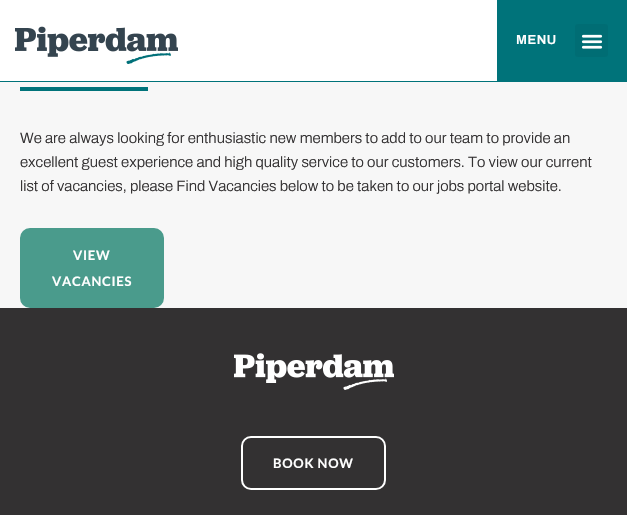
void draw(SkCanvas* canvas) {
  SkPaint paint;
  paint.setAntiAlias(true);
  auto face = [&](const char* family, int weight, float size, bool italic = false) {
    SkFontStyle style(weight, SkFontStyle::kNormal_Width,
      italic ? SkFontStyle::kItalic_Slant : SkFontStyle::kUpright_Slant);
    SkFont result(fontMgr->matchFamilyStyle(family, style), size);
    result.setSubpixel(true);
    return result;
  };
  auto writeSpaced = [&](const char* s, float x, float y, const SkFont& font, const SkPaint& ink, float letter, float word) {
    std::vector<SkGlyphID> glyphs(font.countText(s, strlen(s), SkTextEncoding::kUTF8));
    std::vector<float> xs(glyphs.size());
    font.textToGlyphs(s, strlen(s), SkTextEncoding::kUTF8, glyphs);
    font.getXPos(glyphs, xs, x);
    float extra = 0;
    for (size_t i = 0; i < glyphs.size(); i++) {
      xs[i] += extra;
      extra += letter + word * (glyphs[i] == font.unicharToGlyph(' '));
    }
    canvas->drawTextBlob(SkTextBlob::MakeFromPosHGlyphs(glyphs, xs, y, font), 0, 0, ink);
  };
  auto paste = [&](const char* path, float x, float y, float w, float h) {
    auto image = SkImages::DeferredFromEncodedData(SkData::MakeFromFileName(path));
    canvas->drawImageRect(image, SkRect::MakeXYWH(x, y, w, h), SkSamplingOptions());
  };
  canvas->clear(0xfff7f7f7);
  paint.setColor(0xffffffff);
  canvas->drawRect(SkRect::MakeXYWH(0, 0, 497, 81), paint);
  paint.setColor(0xff00737a);
  canvas->drawRect(SkRect::MakeXYWH(0, 81, 627, 1), paint);
  paste("img/1.png", 15, 26, 163, 38);
  canvas->drawRect(SkRect::MakeXYWH(497, 0, 130, 81), paint);
  paint.setColor(0xff006d74);
  canvas->drawRoundRect(SkRect::MakeXYWH(575, 24, 33, 33), 3, 3, paint);
  paste("img/2.png", 581, 34, 22, 15);
  paint.setColor(0xff00737a);
  canvas->drawRect(SkRect::MakeXYWH(20, 87, 128, 4), paint);
  paint.setColor(0xff4a9b8c);
  canvas->drawRoundRect(SkRect::MakeXYWH(21, 229, 142, 78), 9, 9, paint);
  paint.setStroke(true);
  paint.setStrokeWidth(2);
  canvas->drawRoundRect(SkRect::MakeXYWH(21, 229, 142, 78), 9, 9, paint);
  paint.setStroke(false);
  paint.setColor(0xff333132);
  canvas->drawRect(SkRect::MakeXYWH(0, 308, 627, 207), paint);
  paste("img/3.png", 234, 353, 160, 37);
  paint.setStroke(true);
  paint.setColor(0xffffffff);
  canvas->drawRoundRect(SkRect::MakeXYWH(242, 437, 143, 52), 9, 9, paint);
  auto f0 = face("Archivo", 600, 13);
  paint.setStroke(false);
  writeSpaced("MENU", 516, 44, f0, paint, 0.5f, 0);
  auto f1 = face("Archivo", 300, 15);
  paint.setColor(0xff333132);
  {
    const struct { const char* s; float x, y; } items[] = {
      {"We are always looking for enthusiastic new members to add to our team to provide an", 20, 143},
      {"excellent guest experience and high quality service to our customers. To view our current", 20, 167},
      {"list of vacancies, please Find Vacancies below to be taken to our jobs portal website.", 20, 191},
    };
    for (auto [s, x, y] : items) {
      canvas->drawString(s, x, y, f1, paint);
    }
  }
  auto f2 = face("Lato", 700, 13);
  paint.setColor(0xffffffff);
  {
    const struct { const char* s; float x, y; } items[] = {
      {"VIEW", 73, 260},
      {"VACANCIES", 52, 286},
      {"BOOK NOW", 273, 468},
    };
    for (auto [s, x, y] : items) {
      writeSpaced(s, x, y, f2, paint, 0.75f, 0);
    }
  }
}
